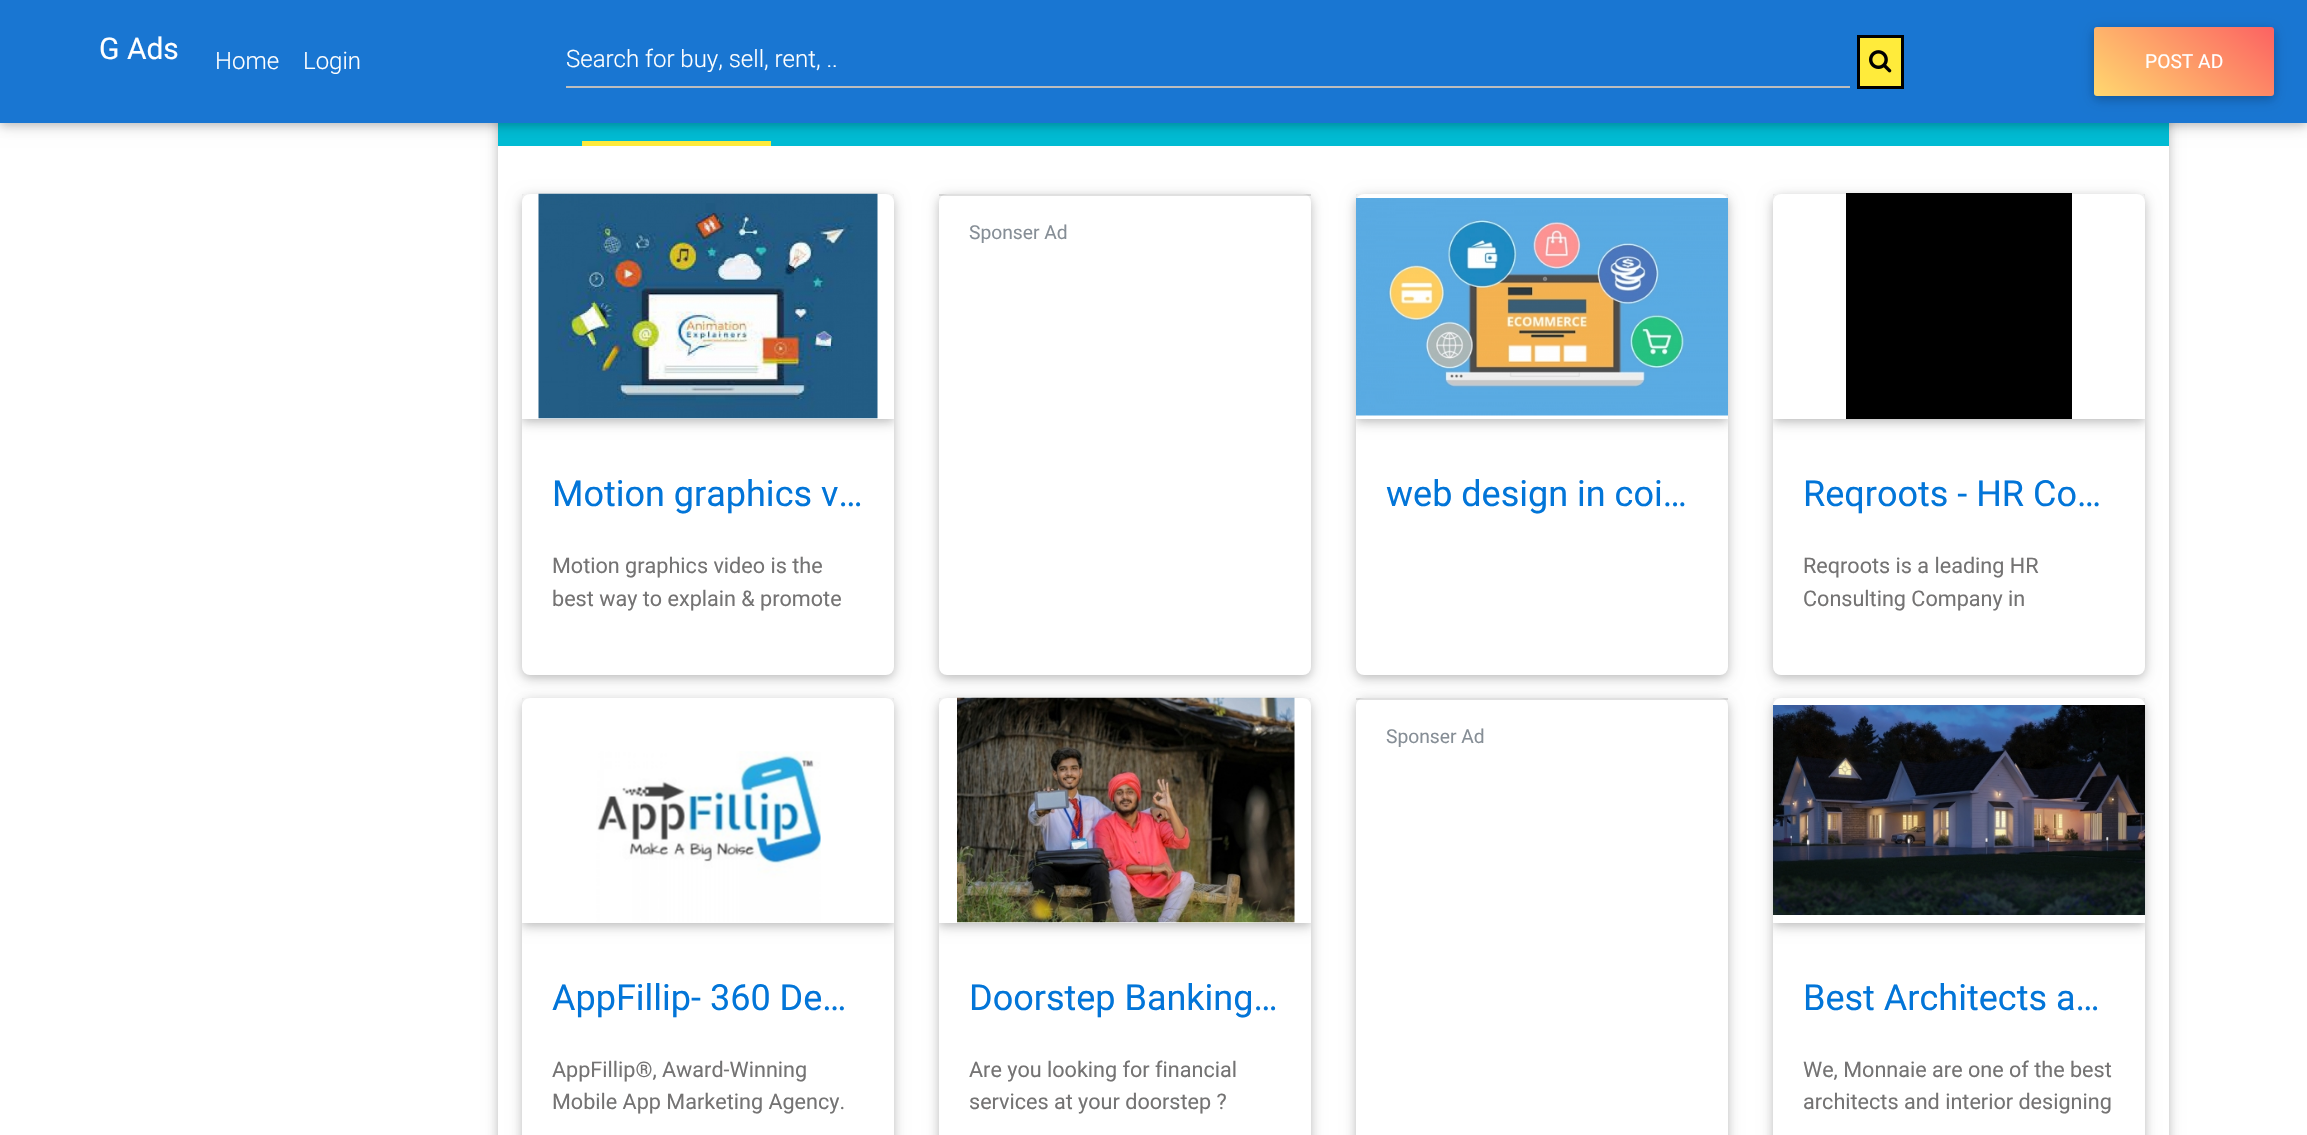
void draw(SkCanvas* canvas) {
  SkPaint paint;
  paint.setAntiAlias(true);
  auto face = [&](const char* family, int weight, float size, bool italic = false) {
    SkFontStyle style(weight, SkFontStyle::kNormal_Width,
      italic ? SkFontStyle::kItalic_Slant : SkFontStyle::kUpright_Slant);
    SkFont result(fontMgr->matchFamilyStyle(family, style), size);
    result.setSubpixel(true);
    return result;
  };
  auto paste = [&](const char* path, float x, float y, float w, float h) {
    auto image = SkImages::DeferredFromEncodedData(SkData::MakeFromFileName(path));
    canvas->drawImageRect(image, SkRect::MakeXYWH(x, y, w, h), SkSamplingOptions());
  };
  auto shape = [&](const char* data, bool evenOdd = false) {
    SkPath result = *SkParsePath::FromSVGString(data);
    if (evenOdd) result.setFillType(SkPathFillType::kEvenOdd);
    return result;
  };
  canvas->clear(0xffffffff);
  canvas->save();
  canvas->clipPath(shape("M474 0H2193V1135H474ZM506-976H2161C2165.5-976 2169-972.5 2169-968V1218C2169 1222.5 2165.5 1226 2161 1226H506C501.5 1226 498 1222.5 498 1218V-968C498-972.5 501.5-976 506-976Z", true), true);
  paint.setColor(0x1f000000);
  paint.setMaskFilter(SkMaskFilter::MakeBlur(kNormal_SkBlurStyle, 7.5f));
  canvas->drawRoundRect(SkRect::MakeXYWH(498, -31, 1671, 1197), 8, 8, paint);
  paint.setMaskFilter(nullptr);
  canvas->restore();
  canvas->save();
  canvas->clipPath(shape("M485 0H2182V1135H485ZM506-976H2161C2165.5-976 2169-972.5 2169-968V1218C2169 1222.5 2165.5 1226 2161 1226H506C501.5 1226 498 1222.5 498 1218V-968C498-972.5 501.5-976 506-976Z", true), true);
  paint.setColor(0x29000000);
  paint.setMaskFilter(SkMaskFilter::MakeBlur(kNormal_SkBlurStyle, 4));
  canvas->drawRoundRect(SkRect::MakeXYWH(498, -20, 1671, 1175), 8, 8, paint);
  paint.setMaskFilter(nullptr);
  canvas->restore();
  paint.setColor(0xff00bcd4);
  canvas->drawRect(SkRect::MakeXYWH(498, 123, 1671, 23), paint);
  paint.setColor(0xffffeb3b);
  canvas->drawRect(SkRect::MakeXYWH(582, 141, 189, 5), paint);
  paint.setColor(0x1f000000);
  paint.setMaskFilter(SkMaskFilter::MakeBlur(kNormal_SkBlurStyle, 7.5f));
  canvas->drawRect(SkRect::MakeXYWH(0, 3, 2307, 123), paint);
  paint.setMaskFilter(nullptr);
  paint.setColor(0x29000000);
  paint.setMaskFilter(SkMaskFilter::MakeBlur(kNormal_SkBlurStyle, 4));
  canvas->drawRect(SkRect::MakeXYWH(0, 3, 2307, 123), paint);
  paint.setMaskFilter(nullptr);
  paint.setColor(0xff1976d2);
  canvas->drawRect(SkRect::MakeXYWH(0, 0, 2307, 123), paint);
  paint.setColor(0xffbdbdbd);
  canvas->drawRect(SkRect::MakeXYWH(566, 86, 1284, 2), paint);
  paint.setColor(0xffffeb3b);
  canvas->drawRect(SkRect::MakeXYWH(1858.5f, 36.5f, 44, 51), paint);
  paint.setStroke(true);
  paint.setStrokeWidth(3);
  paint.setColor(0xff000000);
  canvas->drawRect(SkRect::MakeXYWH(1858.5f, 36.5f, 44, 51), paint);
  paste("img/1.png", 1869, 50, 23, 23);
  paint.setStroke(false);
  paint.setColor(0x1f000000);
  paint.setMaskFilter(SkMaskFilter::MakeBlur(kNormal_SkBlurStyle, 7.5f));
  canvas->drawRoundRect(SkRect::MakeXYWH(2094, 30, 180, 69), 3, 3, paint);
  paint.setMaskFilter(nullptr);
  paint.setColor(0x29000000);
  paint.setMaskFilter(SkMaskFilter::MakeBlur(kNormal_SkBlurStyle, 4));
  canvas->drawRoundRect(SkRect::MakeXYWH(2094, 30, 180, 69), 3, 3, paint);
  paint.setMaskFilter(nullptr);
  {
    const SkColor colors[] = {0xffffd86f, 0xfffc6262};
    const float stops[] = {0, 1};
    const SkPoint ends[] = {{2130, 126}, {2238, -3.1f}};
    paint.setShader(SkGradientShader::MakeLinear(ends, colors, stops, 2, SkTileMode::kClamp));
    paint.setAlpha(255);
  }
  canvas->drawRoundRect(SkRect::MakeXYWH(2094, 27, 180, 69), 3, 3, paint);
  paint.setShader(nullptr);
  paint.setColor(0x1f000000);
  paint.setMaskFilter(SkMaskFilter::MakeBlur(kNormal_SkBlurStyle, 7.5f));
  canvas->drawRoundRect(SkRect::MakeXYWH(939, 197, 372, 481), 8, 8, paint);
  paint.setMaskFilter(nullptr);
  paint.setColor(0x29000000);
  paint.setMaskFilter(SkMaskFilter::MakeBlur(kNormal_SkBlurStyle, 4));
  canvas->drawRoundRect(SkRect::MakeXYWH(939, 197, 372, 481), 8, 8, paint);
  paint.setMaskFilter(nullptr);
  paint.setColor(0xffffffff);
  canvas->drawRoundRect(SkRect::MakeXYWH(939, 194, 372, 481), 8, 8, paint);
  paint.setColor(0x1f000000);
  canvas->drawRect(SkRect::MakeXYWH(939, 194, 372, 2), paint);
  paint.setMaskFilter(SkMaskFilter::MakeBlur(kNormal_SkBlurStyle, 7.5f));
  canvas->drawRoundRect(SkRect::MakeXYWH(522, 197, 372, 481), 8, 8, paint);
  paint.setMaskFilter(nullptr);
  paint.setColor(0x29000000);
  paint.setMaskFilter(SkMaskFilter::MakeBlur(kNormal_SkBlurStyle, 4));
  canvas->drawRoundRect(SkRect::MakeXYWH(522, 197, 372, 481), 8, 8, paint);
  paint.setMaskFilter(nullptr);
  paint.setColor(0xffffffff);
  canvas->drawRoundRect(SkRect::MakeXYWH(522, 194, 372, 481), 8, 8, paint);
  canvas->save();
  canvas->clipRect(SkRect::MakeXYWH(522, 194, 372, 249));
  canvas->clipPath(shape("M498 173H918V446H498ZM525 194H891C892.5 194 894 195.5 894 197V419H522V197C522 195.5 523.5 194 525 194Z", true), true);
  paint.setColor(0x1f000000);
  paint.setMaskFilter(SkMaskFilter::MakeBlur(kNormal_SkBlurStyle, 7.5f));
  canvas->drawRoundRect(SkRect::MakeXYWH(522, 197, 372, 225), 3, 3, paint);
  paint.setMaskFilter(nullptr);
  canvas->restore();
  canvas->save();
  canvas->clipRect(SkRect::MakeXYWH(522, 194, 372, 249));
  canvas->clipPath(shape("M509 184H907V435H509ZM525 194H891C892.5 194 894 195.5 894 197V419H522V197C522 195.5 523.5 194 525 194Z", true), true);
  paint.setColor(0x29000000);
  paint.setMaskFilter(SkMaskFilter::MakeBlur(kNormal_SkBlurStyle, 4));
  canvas->drawRoundRect(SkRect::MakeXYWH(522, 197, 372, 225), 3, 3, paint);
  paint.setMaskFilter(nullptr);
  canvas->restore();
  paste("img/2.png", 538, 193, 340, 226);
  paint.setColor(0x1f000000);
  paint.setMaskFilter(SkMaskFilter::MakeBlur(kNormal_SkBlurStyle, 7.5f));
  canvas->drawRoundRect(SkRect::MakeXYWH(1356, 197, 372, 481), 8, 8, paint);
  paint.setMaskFilter(nullptr);
  paint.setColor(0x29000000);
  paint.setMaskFilter(SkMaskFilter::MakeBlur(kNormal_SkBlurStyle, 4));
  canvas->drawRoundRect(SkRect::MakeXYWH(1356, 197, 372, 481), 8, 8, paint);
  paint.setMaskFilter(nullptr);
  paint.setColor(0xffffffff);
  canvas->drawRoundRect(SkRect::MakeXYWH(1356, 194, 372, 481), 8, 8, paint);
  canvas->save();
  canvas->clipRect(SkRect::MakeXYWH(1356, 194, 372, 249));
  canvas->clipPath(shape("M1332 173H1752V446H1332ZM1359 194H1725C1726.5 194 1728 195.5 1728 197V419H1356V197C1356 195.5 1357.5 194 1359 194Z", true), true);
  paint.setColor(0x1f000000);
  paint.setMaskFilter(SkMaskFilter::MakeBlur(kNormal_SkBlurStyle, 7.5f));
  canvas->drawRoundRect(SkRect::MakeXYWH(1356, 197, 372, 225), 3, 3, paint);
  paint.setMaskFilter(nullptr);
  canvas->restore();
  canvas->save();
  canvas->clipRect(SkRect::MakeXYWH(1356, 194, 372, 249));
  canvas->clipPath(shape("M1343 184H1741V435H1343ZM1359 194H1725C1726.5 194 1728 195.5 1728 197V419H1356V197C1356 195.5 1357.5 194 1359 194Z", true), true);
  paint.setColor(0x29000000);
  paint.setMaskFilter(SkMaskFilter::MakeBlur(kNormal_SkBlurStyle, 4));
  canvas->drawRoundRect(SkRect::MakeXYWH(1356, 197, 372, 225), 3, 3, paint);
  paint.setMaskFilter(nullptr);
  canvas->restore();
  paste("img/3.png", 1356, 198, 372, 218);
  paint.setColor(0x1f000000);
  paint.setMaskFilter(SkMaskFilter::MakeBlur(kNormal_SkBlurStyle, 7.5f));
  canvas->drawRoundRect(SkRect::MakeXYWH(1773, 197, 372, 481), 8, 8, paint);
  paint.setMaskFilter(nullptr);
  paint.setColor(0x29000000);
  paint.setMaskFilter(SkMaskFilter::MakeBlur(kNormal_SkBlurStyle, 4));
  canvas->drawRoundRect(SkRect::MakeXYWH(1773, 197, 372, 481), 8, 8, paint);
  paint.setMaskFilter(nullptr);
  paint.setColor(0xffffffff);
  canvas->drawRoundRect(SkRect::MakeXYWH(1773, 194, 372, 481), 8, 8, paint);
  canvas->save();
  canvas->clipRect(SkRect::MakeXYWH(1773, 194, 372, 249));
  canvas->clipPath(shape("M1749 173H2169V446H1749ZM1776 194H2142C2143.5 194 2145 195.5 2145 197V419H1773V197C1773 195.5 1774.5 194 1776 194Z", true), true);
  paint.setColor(0x1f000000);
  paint.setMaskFilter(SkMaskFilter::MakeBlur(kNormal_SkBlurStyle, 7.5f));
  canvas->drawRoundRect(SkRect::MakeXYWH(1773, 197, 372, 225), 3, 3, paint);
  paint.setMaskFilter(nullptr);
  canvas->restore();
  canvas->save();
  canvas->clipRect(SkRect::MakeXYWH(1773, 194, 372, 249));
  canvas->clipPath(shape("M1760 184H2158V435H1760ZM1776 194H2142C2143.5 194 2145 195.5 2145 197V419H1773V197C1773 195.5 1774.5 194 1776 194Z", true), true);
  paint.setColor(0x29000000);
  paint.setMaskFilter(SkMaskFilter::MakeBlur(kNormal_SkBlurStyle, 4));
  canvas->drawRoundRect(SkRect::MakeXYWH(1773, 197, 372, 225), 3, 3, paint);
  paint.setMaskFilter(nullptr);
  canvas->restore();
  paint.setColor(0xff000000);
  canvas->drawRect(SkRect::MakeXYWH(1846, 193, 226, 226), paint);
  canvas->save();
  canvas->clipPath(shape("M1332 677H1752V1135H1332ZM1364 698H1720C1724.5 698 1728 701.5 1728 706V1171C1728 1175.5 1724.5 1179 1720 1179H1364C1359.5 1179 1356 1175.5 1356 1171V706C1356 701.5 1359.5 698 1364 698Z", true), true);
  paint.setColor(0x1f000000);
  paint.setMaskFilter(SkMaskFilter::MakeBlur(kNormal_SkBlurStyle, 7.5f));
  canvas->drawRoundRect(SkRect::MakeXYWH(1356, 701, 372, 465), 8, 8, paint);
  paint.setMaskFilter(nullptr);
  canvas->restore();
  canvas->save();
  canvas->clipPath(shape("M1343 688H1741V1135H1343ZM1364 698H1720C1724.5 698 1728 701.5 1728 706V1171C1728 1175.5 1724.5 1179 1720 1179H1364C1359.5 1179 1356 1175.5 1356 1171V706C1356 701.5 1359.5 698 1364 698Z", true), true);
  paint.setColor(0x29000000);
  paint.setMaskFilter(SkMaskFilter::MakeBlur(kNormal_SkBlurStyle, 4));
  canvas->drawRoundRect(SkRect::MakeXYWH(1356, 701, 372, 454), 8, 8, paint);
  paint.setMaskFilter(nullptr);
  canvas->restore();
  paint.setColor(0x1f000000);
  canvas->drawRect(SkRect::MakeXYWH(1356, 698, 372, 2), paint);
  canvas->save();
  canvas->clipPath(shape("M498 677H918V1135H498ZM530 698H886C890.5 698 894 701.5 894 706V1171C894 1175.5 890.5 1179 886 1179H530C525.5 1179 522 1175.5 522 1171V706C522 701.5 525.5 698 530 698Z", true), true);
  paint.setMaskFilter(SkMaskFilter::MakeBlur(kNormal_SkBlurStyle, 7.5f));
  canvas->drawRoundRect(SkRect::MakeXYWH(522, 701, 372, 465), 8, 8, paint);
  paint.setMaskFilter(nullptr);
  canvas->restore();
  canvas->save();
  canvas->clipPath(shape("M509 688H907V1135H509ZM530 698H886C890.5 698 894 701.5 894 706V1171C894 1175.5 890.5 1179 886 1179H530C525.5 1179 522 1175.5 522 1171V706C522 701.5 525.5 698 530 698Z", true), true);
  paint.setColor(0x29000000);
  paint.setMaskFilter(SkMaskFilter::MakeBlur(kNormal_SkBlurStyle, 4));
  canvas->drawRoundRect(SkRect::MakeXYWH(522, 701, 372, 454), 8, 8, paint);
  paint.setMaskFilter(nullptr);
  canvas->restore();
  canvas->save();
  canvas->clipRect(SkRect::MakeXYWH(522, 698, 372, 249));
  canvas->clipPath(shape("M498 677H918V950H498ZM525 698H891C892.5 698 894 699.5 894 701V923H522V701C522 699.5 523.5 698 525 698Z", true), true);
  paint.setColor(0x1f000000);
  paint.setMaskFilter(SkMaskFilter::MakeBlur(kNormal_SkBlurStyle, 7.5f));
  canvas->drawRoundRect(SkRect::MakeXYWH(522, 701, 372, 225), 3, 3, paint);
  paint.setMaskFilter(nullptr);
  canvas->restore();
  canvas->save();
  canvas->clipRect(SkRect::MakeXYWH(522, 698, 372, 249));
  canvas->clipPath(shape("M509 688H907V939H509ZM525 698H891C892.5 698 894 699.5 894 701V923H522V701C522 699.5 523.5 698 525 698Z", true), true);
  paint.setColor(0x29000000);
  paint.setMaskFilter(SkMaskFilter::MakeBlur(kNormal_SkBlurStyle, 4));
  canvas->drawRoundRect(SkRect::MakeXYWH(522, 701, 372, 225), 3, 3, paint);
  paint.setMaskFilter(nullptr);
  canvas->restore();
  paste("img/4.png", 596, 751, 225, 172);
  canvas->save();
  canvas->clipPath(shape("M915 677H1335V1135H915ZM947 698H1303C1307.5 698 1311 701.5 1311 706V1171C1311 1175.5 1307.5 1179 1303 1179H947C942.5 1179 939 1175.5 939 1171V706C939 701.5 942.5 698 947 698Z", true), true);
  paint.setColor(0x1f000000);
  paint.setMaskFilter(SkMaskFilter::MakeBlur(kNormal_SkBlurStyle, 7.5f));
  canvas->drawRoundRect(SkRect::MakeXYWH(939, 701, 372, 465), 8, 8, paint);
  paint.setMaskFilter(nullptr);
  canvas->restore();
  canvas->save();
  canvas->clipPath(shape("M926 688H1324V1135H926ZM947 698H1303C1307.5 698 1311 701.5 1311 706V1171C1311 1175.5 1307.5 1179 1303 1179H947C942.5 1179 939 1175.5 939 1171V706C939 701.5 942.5 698 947 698Z", true), true);
  paint.setColor(0x29000000);
  paint.setMaskFilter(SkMaskFilter::MakeBlur(kNormal_SkBlurStyle, 4));
  canvas->drawRoundRect(SkRect::MakeXYWH(939, 701, 372, 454), 8, 8, paint);
  paint.setMaskFilter(nullptr);
  canvas->restore();
  canvas->save();
  canvas->clipRect(SkRect::MakeXYWH(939, 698, 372, 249));
  canvas->clipPath(shape("M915 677H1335V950H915ZM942 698H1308C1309.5 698 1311 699.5 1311 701V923H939V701C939 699.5 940.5 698 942 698Z", true), true);
  paint.setColor(0x1f000000);
  paint.setMaskFilter(SkMaskFilter::MakeBlur(kNormal_SkBlurStyle, 7.5f));
  canvas->drawRoundRect(SkRect::MakeXYWH(939, 701, 372, 225), 3, 3, paint);
  paint.setMaskFilter(nullptr);
  canvas->restore();
  canvas->save();
  canvas->clipRect(SkRect::MakeXYWH(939, 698, 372, 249));
  canvas->clipPath(shape("M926 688H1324V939H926ZM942 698H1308C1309.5 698 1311 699.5 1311 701V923H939V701C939 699.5 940.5 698 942 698Z", true), true);
  paint.setColor(0x29000000);
  paint.setMaskFilter(SkMaskFilter::MakeBlur(kNormal_SkBlurStyle, 4));
  canvas->drawRoundRect(SkRect::MakeXYWH(939, 701, 372, 225), 3, 3, paint);
  paint.setMaskFilter(nullptr);
  canvas->restore();
  paste("img/5.png", 957, 697, 338, 226);
  canvas->save();
  canvas->clipPath(shape("M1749 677H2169V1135H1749ZM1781 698H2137C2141.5 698 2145 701.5 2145 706V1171C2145 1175.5 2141.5 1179 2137 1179H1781C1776.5 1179 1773 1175.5 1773 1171V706C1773 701.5 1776.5 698 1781 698Z", true), true);
  paint.setColor(0x1f000000);
  paint.setMaskFilter(SkMaskFilter::MakeBlur(kNormal_SkBlurStyle, 7.5f));
  canvas->drawRoundRect(SkRect::MakeXYWH(1773, 701, 372, 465), 8, 8, paint);
  paint.setMaskFilter(nullptr);
  canvas->restore();
  canvas->save();
  canvas->clipPath(shape("M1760 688H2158V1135H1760ZM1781 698H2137C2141.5 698 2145 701.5 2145 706V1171C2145 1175.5 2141.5 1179 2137 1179H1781C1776.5 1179 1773 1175.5 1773 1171V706C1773 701.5 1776.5 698 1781 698Z", true), true);
  paint.setColor(0x29000000);
  paint.setMaskFilter(SkMaskFilter::MakeBlur(kNormal_SkBlurStyle, 4));
  canvas->drawRoundRect(SkRect::MakeXYWH(1773, 701, 372, 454), 8, 8, paint);
  paint.setMaskFilter(nullptr);
  canvas->restore();
  canvas->save();
  canvas->clipRect(SkRect::MakeXYWH(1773, 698, 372, 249));
  canvas->clipPath(shape("M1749 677H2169V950H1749ZM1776 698H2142C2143.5 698 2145 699.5 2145 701V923H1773V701C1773 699.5 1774.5 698 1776 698Z", true), true);
  paint.setColor(0x1f000000);
  paint.setMaskFilter(SkMaskFilter::MakeBlur(kNormal_SkBlurStyle, 7.5f));
  canvas->drawRoundRect(SkRect::MakeXYWH(1773, 701, 372, 225), 3, 3, paint);
  paint.setMaskFilter(nullptr);
  canvas->restore();
  canvas->save();
  canvas->clipRect(SkRect::MakeXYWH(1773, 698, 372, 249));
  canvas->clipPath(shape("M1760 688H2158V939H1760ZM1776 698H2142C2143.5 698 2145 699.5 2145 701V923H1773V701C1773 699.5 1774.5 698 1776 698Z", true), true);
  paint.setColor(0x29000000);
  paint.setMaskFilter(SkMaskFilter::MakeBlur(kNormal_SkBlurStyle, 4));
  canvas->drawRoundRect(SkRect::MakeXYWH(1773, 701, 372, 225), 3, 3, paint);
  paint.setMaskFilter(nullptr);
  canvas->restore();
  paste("img/6.png", 1773, 705, 372, 210);
  auto f0 = face("Roboto", 400, 30);
  paint.setColor(0xffffffff);
  canvas->drawString("G Ads", 99, 59, f0, paint);
  auto f1 = face("Roboto", 300, 24);
  {
    const struct { const char* s; float x, y; } items[] = {
      {"Home", 215, 69},
      {"Login", 303, 69},
      {"Search for buy, sell, rent, ..", 566, 67},
    };
    for (auto [s, x, y] : items) {
      canvas->drawString(s, x, y, f1, paint);
    }
  }
  auto f2 = face("Roboto", 400, 19.25f);
  canvas->drawString("POST AD", 2145, 68, f2, paint);
  paint.setColor(0xff868e96);
  canvas->drawString("Sponser Ad", 969, 239, f2, paint);
  auto f3 = face("Roboto", 400, 36);
  paint.setColor(0xff0275d8);
  canvas->drawString("Motion graphics v…", 552, 506, f3, paint);
  auto f4 = face("Roboto", 400, 21.6f);
  paint.setColor(0xff747373);
  canvas->drawString("Motion graphics video is the", 552, 573, f4, paint);
  canvas->drawString("best way to explain & promote", 552, 606, f4, paint);
  paint.setColor(0xff0275d8);
  canvas->drawString("web design in coi…", 1386, 506, f3, paint);
  canvas->drawString("Reqroots - HR Co…", 1803, 506, f3, paint);
  paint.setColor(0xff747373);
  canvas->drawString("Reqroots is a leading HR", 1803, 573, f4, paint);
  canvas->drawString("Consulting Company in", 1803, 606, f4, paint);
  paint.setColor(0xff868e96);
  canvas->drawString("Sponser Ad", 1386, 743, f2, paint);
  paint.setColor(0xff0275d8);
  canvas->drawString("AppFillip- 360 De…", 552, 1010, f3, paint);
  paint.setColor(0xff747373);
  canvas->drawString("AppFillip®, Award-Winning", 552, 1077, f4, paint);
  canvas->drawString("Mobile App Marketing Agency.", 552, 1109, f4, paint);
  paint.setColor(0xff0275d8);
  canvas->drawString("Doorstep Banking…", 969, 1010, f3, paint);
  paint.setColor(0xff747373);
  canvas->drawString("Are you looking for financial", 969, 1077, f4, paint);
  canvas->drawString("services at your doorstep ?", 969, 1109, f4, paint);
  paint.setColor(0xff0275d8);
  canvas->drawString("Best Architects a…", 1803, 1010, f3, paint);
  paint.setColor(0xff747373);
  canvas->drawString("We, Monnaie are one of the best", 1803, 1077, f4, paint);
  canvas->drawString("architects and interior designing", 1803, 1109, f4, paint);
}
